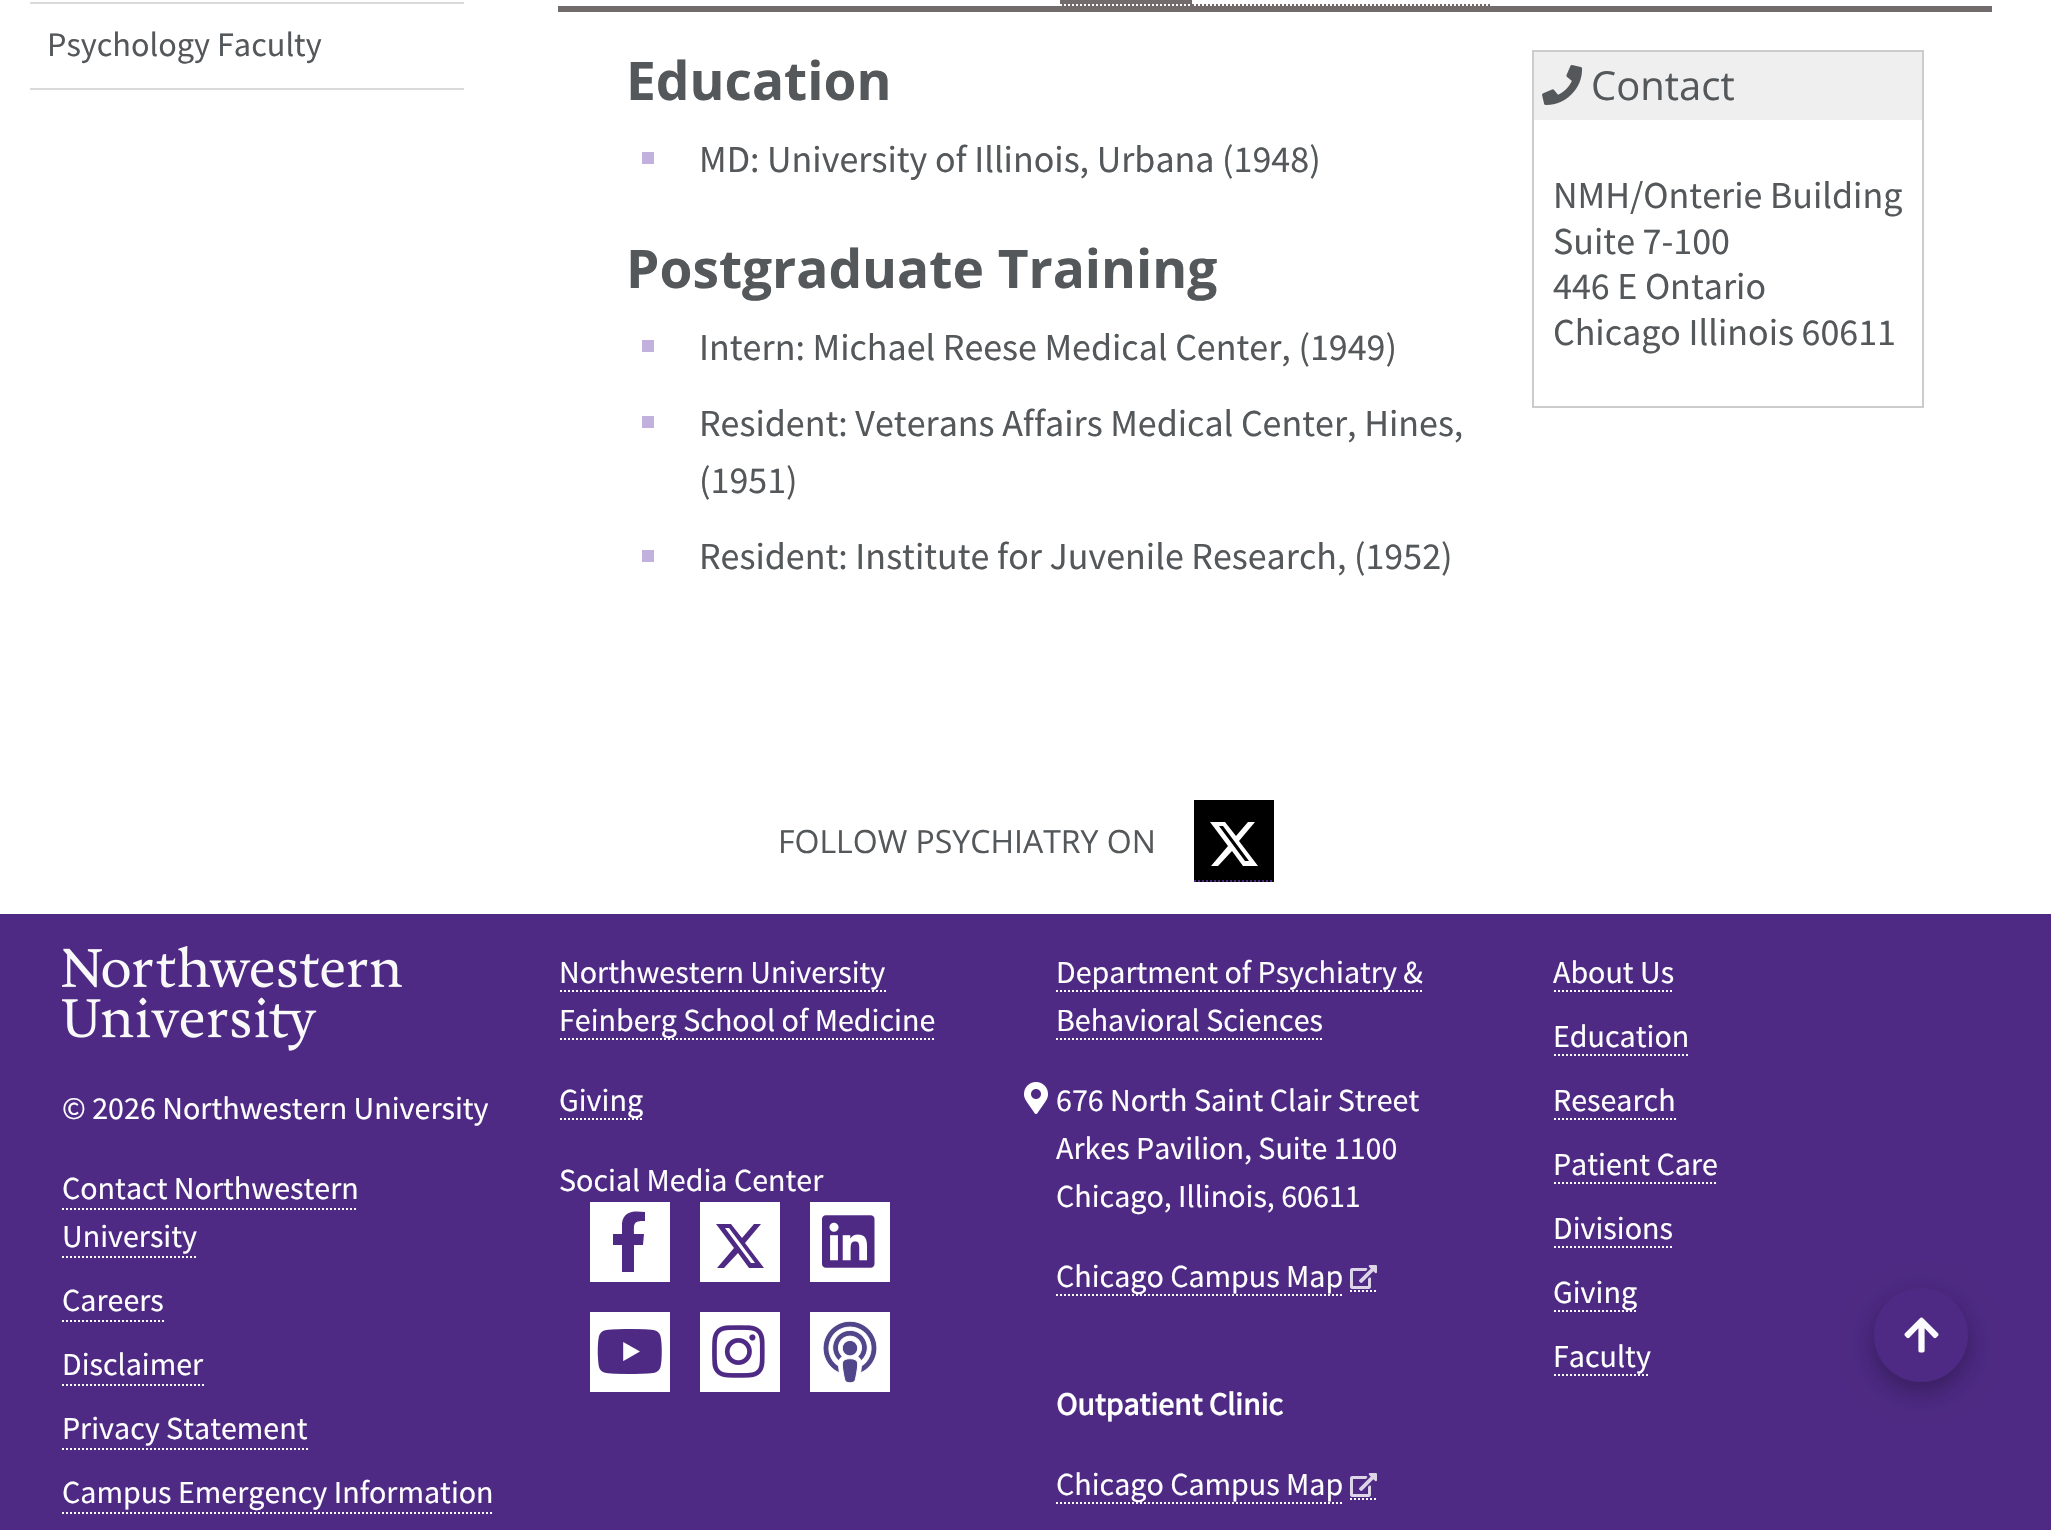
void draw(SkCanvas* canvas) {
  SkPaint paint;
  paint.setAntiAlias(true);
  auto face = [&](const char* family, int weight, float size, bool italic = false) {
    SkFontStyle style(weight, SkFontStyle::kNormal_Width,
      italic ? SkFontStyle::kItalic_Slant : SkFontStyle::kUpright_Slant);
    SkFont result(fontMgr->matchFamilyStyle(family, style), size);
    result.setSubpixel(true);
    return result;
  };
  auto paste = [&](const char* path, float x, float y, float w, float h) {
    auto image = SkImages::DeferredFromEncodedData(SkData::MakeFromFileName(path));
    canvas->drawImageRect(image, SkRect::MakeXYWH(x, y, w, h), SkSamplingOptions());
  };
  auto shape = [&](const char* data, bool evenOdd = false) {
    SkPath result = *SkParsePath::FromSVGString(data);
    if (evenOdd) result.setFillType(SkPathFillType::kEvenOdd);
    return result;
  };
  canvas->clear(0xffffffff);
  {
    const struct { float x, y, w, h; SkColor color; } items[] = {
      {30, 2, 434, 2, 0xffdadada},
      {30, 88, 434, 2, 0xffdadada},
      {1060, 0, 132, 6, 0xff716c6b},
    };
    for (auto [x, y, w, h, color] : items) {
      paint.setColor(color);
      canvas->drawRect(SkRect::MakeXYWH(x, y, w, h), paint);
    }
  }
  paint.setStroke(true);
  paint.setStrokeWidth(2);
  paint.setColor(0xffffffff);
  paint.setPathEffect(SkDashPathEffect::Make({{2, 2}}, 0));
  canvas->drawPath(shape("M1060 5H1192"), paint);
  paint.setPathEffect(nullptr);
  paint.setColor(0xff716c6b);
  paint.setPathEffect(SkDashPathEffect::Make({{2, 2}}, 0));
  canvas->drawPath(shape("M1192 5H1490"), paint);
  paint.setPathEffect(nullptr);
  paint.setStroke(false);
  {
    const struct { float x, y, w, h; SkColor color; } items[] = {
      {558, 6, 1434, 6, 0xff716c6b},
      {642, 152, 12, 12, 0xffc3b1dd},
      {642, 340, 12, 12, 0xffc3b1dd},
      {642, 416, 12, 12, 0xffc3b1dd},
      {642, 550, 12, 12, 0xffc3b1dd},
    };
    for (auto [x, y, w, h, color] : items) {
      paint.setColor(color);
      canvas->drawRect(SkRect::MakeXYWH(x, y, w, h), paint);
    }
  }
  paint.setStroke(true);
  paint.setColor(0xffcccccc);
  canvas->drawRect(SkRect::MakeXYWH(1533, 51, 390, 356), paint);
  paint.setStroke(false);
  paint.setColor(0xffefefef);
  canvas->drawRect(SkRect::MakeXYWH(1534, 52, 388, 68), paint);
  paste("img/1.png", 1542, 65, 41, 40);
  paint.setColor(0xff4e2a84);
  canvas->drawRect(SkRect::MakeXYWH(0, 914, 2051, 616), paint);
  paint.setColor(0x26020103);
  paint.setMaskFilter(SkMaskFilter::MakeBlur(kNormal_SkBlurStyle, 15));
  canvas->drawRoundRect(SkRect::MakeXYWH(1874, 1296, 94, 94), 47, 47, paint);
  paint.setMaskFilter(nullptr);
  paint.setColor(0x2e020103);
  paint.setMaskFilter(SkMaskFilter::MakeBlur(kNormal_SkBlurStyle, 11));
  canvas->drawRoundRect(SkRect::MakeXYWH(1874, 1298, 94, 94), 47, 47, paint);
  paint.setMaskFilter(nullptr);
  paint.setColor(0xff4e2a84);
  canvas->drawCircle(1921, 1335, 47, paint);
  paste("img/2.png", 1904, 1317, 35, 36);
  paint.setColor(0xff000000);
  canvas->drawRect(SkRect::MakeXYWH(1194, 800, 80, 82), paint);
  paint.setStroke(true);
  paint.setColor(0xff4e2a84);
  paint.setPathEffect(SkDashPathEffect::Make({{2, 2}}, 0));
  canvas->drawPath(shape("M1194 881H1274"), paint);
  paint.setPathEffect(nullptr);
  paint.setStroke(false);
  paint.setColor(0xffffffff);
  canvas->drawPath(shape("M1248 822H1255L1239 841L1258 866H1243L1232 851L1218 866H1211L1228 846L1210 822H1225L1236 836ZM1245 861H1249L1223 826H1219Z"), paint);
  paste("img/3.png", 62, 946, 340, 105);
  paint.setStroke(true);
  paint.setPathEffect(SkDashPathEffect::Make({{2, 2}}, 0));
  canvas->drawPath(shape("M62 1209H358"), paint);
  paint.setPathEffect(nullptr);
  paint.setPathEffect(SkDashPathEffect::Make({{2, 2}}, 0));
  canvas->drawPath(shape("M62 1257H198"), paint);
  paint.setPathEffect(nullptr);
  paint.setPathEffect(SkDashPathEffect::Make({{2, 2}}, 0));
  canvas->drawPath(shape("M62 1321H164"), paint);
  paint.setPathEffect(nullptr);
  paint.setPathEffect(SkDashPathEffect::Make({{2, 2}}, 0));
  canvas->drawPath(shape("M62 1385H204"), paint);
  paint.setPathEffect(nullptr);
  paint.setPathEffect(SkDashPathEffect::Make({{2, 2}}, 0));
  canvas->drawPath(shape("M62 1449H308"), paint);
  paint.setPathEffect(nullptr);
  paint.setPathEffect(SkDashPathEffect::Make({{2, 2}}, 0));
  canvas->drawPath(shape("M62 1513H494"), paint);
  paint.setPathEffect(nullptr);
  paint.setPathEffect(SkDashPathEffect::Make({{2, 2}}, 0));
  canvas->drawPath(shape("M560 991H886"), paint);
  paint.setPathEffect(nullptr);
  paint.setPathEffect(SkDashPathEffect::Make({{2, 2}}, 0));
  canvas->drawPath(shape("M560 1039H936"), paint);
  paint.setPathEffect(nullptr);
  paint.setPathEffect(SkDashPathEffect::Make({{2, 2}}, 0));
  canvas->drawPath(shape("M560 1119H644"), paint);
  paint.setPathEffect(nullptr);
  paint.setStroke(false);
  canvas->drawRect(SkRect::MakeXYWH(590, 1202, 80, 80), paint);
  paint.setColor(0xff4e2a84);
  canvas->drawPath(shape("M643 1245H634V1272H622V1245H613V1234H622V1223C624 1210 635 1211 645 1212V1221C633 1221 634 1223 634 1234H644Z"), paint);
  paint.setColor(0xffffffff);
  canvas->drawRect(SkRect::MakeXYWH(700, 1202, 80, 80), paint);
  paint.setColor(0xff4e2a84);
  canvas->drawPath(shape("M754 1224H761L745 1243L764 1268H749L738 1253L724 1268H717L734 1248L716 1224H731L742 1238ZM751 1263H755L729 1228H725Z"), paint);
  paint.setColor(0xffffffff);
  canvas->drawRect(SkRect::MakeXYWH(810, 1202, 80, 80), paint);
  paste("img/4.png", 822, 1215, 53, 53);
  canvas->drawRect(SkRect::MakeXYWH(590, 1312, 80, 80), paint);
  paste("img/5.png", 597, 1329, 65, 45);
  canvas->drawRect(SkRect::MakeXYWH(700, 1312, 80, 80), paint);
  paste("img/6.png", 712, 1325, 53, 53);
  canvas->drawRect(SkRect::MakeXYWH(810, 1312, 80, 80), paint);
  paste("img/7.png", 823, 1321, 54, 62);
  paint.setStroke(true);
  paint.setPathEffect(SkDashPathEffect::Make({{2, 2}}, 0));
  canvas->drawPath(shape("M1056 991H1422"), paint);
  paint.setPathEffect(nullptr);
  paint.setPathEffect(SkDashPathEffect::Make({{2, 2}}, 0));
  canvas->drawPath(shape("M1056 1039H1324"), paint);
  paint.setPathEffect(nullptr);
  paste("img/8.png", 1024, 1082, 24, 32);
  paint.setPathEffect(SkDashPathEffect::Make({{2, 2}}, 0));
  canvas->drawPath(shape("M1056 1295H1344"), paint);
  paint.setPathEffect(nullptr);
  paint.setPathEffect(SkDashPathEffect::Make({{2, 2}}, 0));
  canvas->drawPath(shape("M1350 1291H1378"), paint);
  paint.setPathEffect(nullptr);
  paste("img/9.png", 1350, 1265, 27, 24);
  paint.setPathEffect(SkDashPathEffect::Make({{2, 2}}, 0));
  canvas->drawPath(shape("M1056 1503H1344"), paint);
  paint.setPathEffect(nullptr);
  paint.setPathEffect(SkDashPathEffect::Make({{2, 2}}, 0));
  canvas->drawPath(shape("M1350 1499H1378"), paint);
  paint.setPathEffect(nullptr);
  paste("img/9.png", 1350, 1473, 27, 24);
  paint.setPathEffect(SkDashPathEffect::Make({{2, 2}}, 0));
  canvas->drawPath(shape("M1554 991H1674"), paint);
  paint.setPathEffect(nullptr);
  paint.setPathEffect(SkDashPathEffect::Make({{2, 2}}, 0));
  canvas->drawPath(shape("M1554 1055H1690"), paint);
  paint.setPathEffect(nullptr);
  paint.setPathEffect(SkDashPathEffect::Make({{2, 2}}, 0));
  canvas->drawPath(shape("M1554 1119H1676"), paint);
  paint.setPathEffect(nullptr);
  paint.setPathEffect(SkDashPathEffect::Make({{2, 2}}, 0));
  canvas->drawPath(shape("M1554 1183H1718"), paint);
  paint.setPathEffect(nullptr);
  paint.setPathEffect(SkDashPathEffect::Make({{2, 2}}, 0));
  canvas->drawPath(shape("M1554 1247H1672"), paint);
  paint.setPathEffect(nullptr);
  paint.setPathEffect(SkDashPathEffect::Make({{2, 2}}, 0));
  canvas->drawPath(shape("M1554 1311H1638"), paint);
  paint.setPathEffect(nullptr);
  paint.setPathEffect(SkDashPathEffect::Make({{2, 2}}, 0));
  canvas->drawPath(shape("M1554 1375H1650"), paint);
  paint.setPathEffect(nullptr);
  auto f0 = face("Source Sans Pro", 400, 34.25f);
  paint.setStroke(false);
  paint.setColor(0xff54585a);
  canvas->drawString("Psychology Faculty", 47, 56, f0, paint);
  auto f1 = face("Open Sans", 700, 53.25f);
  canvas->drawString("Education", 626, 100, f1, paint);
  auto f2 = face("Source Sans Pro", 400, 38);
  canvas->drawString("MD: University of Illinois, Urbana (1948)", 699, 172, f2, paint);
  canvas->drawString("Postgraduate Training", 626, 288, f1, paint);
  {
    const struct { const char* s; float x, y; } items[] = {
      {"Intern: Michael Reese Medical Center, (1949)", 699, 360},
      {"Resident: Veterans Affairs Medical Center, Hines,", 699, 436},
      {"(1951)", 699, 493},
      {"Resident: Institute for Juvenile Research, (1952)", 699, 569},
    };
    for (auto [s, x, y] : items) {
      canvas->drawString(s, x, y, f2, paint);
    }
  }
  auto f3 = face("Open Sans", 400, 40);
  canvas->drawString("Contact", 1591, 100, f3, paint);
  {
    const struct { const char* s; float x, y; } items[] = {
      {"NMH/Onterie Building", 1553, 208},
      {"Suite 7-100", 1553, 254},
      {"446 E Ontario", 1553, 299},
      {"Chicago Illinois 60611", 1553, 345},
    };
    for (auto [s, x, y] : items) {
      canvas->drawString(s, x, y, f2, paint);
    }
  }
  auto f4 = face("Open Sans", 400, 32);
  canvas->drawString("FOLLOW PSYCHIATRY ON", 778, 853, f4, paint);
  auto f5 = face("Source Sans Pro", 400, 32);
  paint.setColor(0xffffffff);
  {
    const struct { const char* s; float x, y; } items[] = {
      {"© 2026 Northwestern University", 62, 1119},
      {"Contact Northwestern", 62, 1199},
      {"University", 62, 1247},
      {"Careers", 62, 1311},
      {"Disclaimer", 62, 1375},
      {"Privacy Statement", 62, 1439},
      {"Campus Emergency Information", 62, 1503},
      {"Northwestern University", 559, 983},
      {"Feinberg School of Medicine", 559, 1031},
      {"Giving", 559, 1111},
      {"Social Media Center", 559, 1191},
      {"Department of Psychiatry &", 1056, 983},
      {"Behavioral Sciences", 1056, 1031},
      {"676 North Saint Clair Street", 1056, 1111},
      {"Arkes Pavilion, Suite 1100", 1056, 1159},
      {"Chicago, Illinois, 60611", 1056, 1207},
      {"Chicago Campus Map", 1056, 1287},
    };
    for (auto [s, x, y] : items) {
      canvas->drawString(s, x, y, f5, paint);
    }
  }
  auto f6 = face("Source Sans Pro", 700, 32);
  canvas->drawString("Outpatient Clinic", 1056, 1415, f6, paint);
  {
    const struct { const char* s; float x, y; } items[] = {
      {"Chicago Campus Map", 1056, 1495},
      {"About Us", 1553, 983},
      {"Education", 1553, 1047},
      {"Research", 1553, 1111},
      {"Patient Care", 1553, 1175},
      {"Divisions", 1553, 1239},
      {"Giving", 1553, 1303},
      {"Faculty", 1553, 1367},
    };
    for (auto [s, x, y] : items) {
      canvas->drawString(s, x, y, f5, paint);
    }
  }
}
